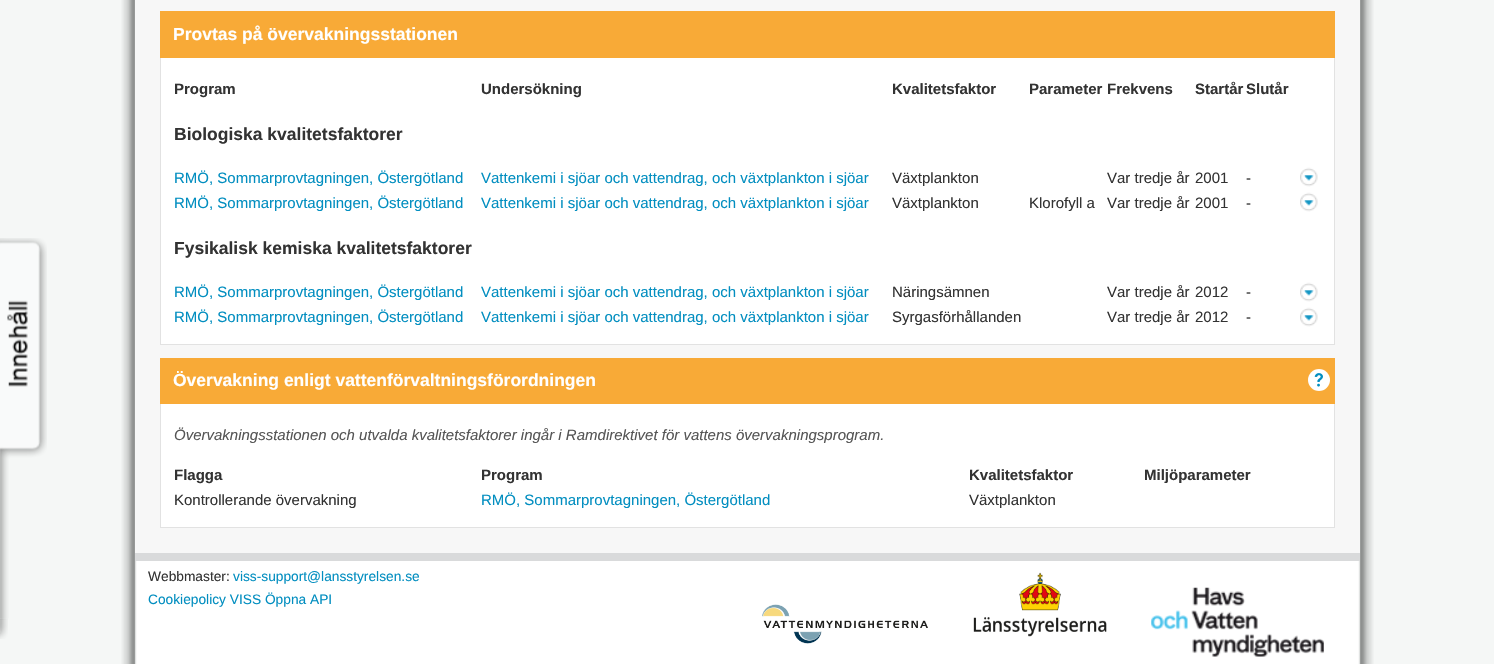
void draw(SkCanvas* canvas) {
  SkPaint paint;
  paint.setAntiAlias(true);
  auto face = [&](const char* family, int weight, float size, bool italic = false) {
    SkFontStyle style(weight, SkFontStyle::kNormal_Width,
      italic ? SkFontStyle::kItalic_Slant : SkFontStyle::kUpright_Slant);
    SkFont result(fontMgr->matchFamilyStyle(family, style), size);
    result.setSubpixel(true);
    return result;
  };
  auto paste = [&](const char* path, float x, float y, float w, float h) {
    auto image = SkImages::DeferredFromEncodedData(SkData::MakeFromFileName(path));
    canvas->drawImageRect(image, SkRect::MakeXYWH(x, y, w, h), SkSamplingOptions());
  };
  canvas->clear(0xfff5f7f6);
  paste("img/1.png", 121, 0, 1253, 664);
  paint.setColor(0xfff7f7f7);
  canvas->drawRect(SkRect::MakeXYWH(135, 0, 1225, 553), paint);
  paint.setColor(0xffffffff);
  canvas->drawRect(SkRect::MakeXYWH(161, 58, 1173, 286), paint);
  paint.setStroke(true);
  paint.setStrokeWidth(1);
  paint.setColor(0xffe2e2e2);
  canvas->drawRect(SkRect::MakeXYWH(160.5f, 11.5f, 1174, 333), paint);
  paint.setStroke(false);
  paint.setColor(0xfff8aa37);
  canvas->drawRect(SkRect::MakeXYWH(160, 11, 1175, 47), paint);
  paste("img/2.png", 1300, 167, 18, 20);
  paste("img/2.png", 1300, 192, 18, 20);
  paste("img/2.png", 1300, 282, 18, 20);
  paste("img/2.png", 1300, 307, 18, 20);
  paste("img/3.png", 0, 618, 8, 21);
  paste("img/4.png", 0, 238, 47, 382);
  paint.setColor(0xffffffff);
  canvas->drawRect(SkRect::MakeXYWH(161, 404, 1173, 123), paint);
  paint.setStroke(true);
  paint.setColor(0xffe2e2e2);
  canvas->drawRect(SkRect::MakeXYWH(160.5f, 358.5f, 1174, 169), paint);
  paint.setStroke(false);
  paint.setColor(0xfff8aa37);
  canvas->drawRect(SkRect::MakeXYWH(160, 358, 1175, 46), paint);
  paint.setColor(0xffffffff);
  canvas->drawCircle(1319, 380, 11, paint);
  paste("img/5.png", 1314, 373, 9, 14);
  paint.setColor(0xffd9dadb);
  canvas->drawRect(SkRect::MakeXYWH(135, 553, 1225, 8), paint);
  paste("img/6.png", 762, 604, 166, 40);
  paste("img/7.png", 973, 572, 134, 65);
  paste("img/8.png", 1151, 587, 173, 70);
  auto f0 = face("Liberation Sans", 700, 17.5f);
  paint.setColor(0xffffffff);
  canvas->drawString("Provtas på övervakningsstationen", 173, 40, f0, paint);
  auto f1 = face("Liberation Sans", 700, 15);
  paint.setColor(0xff333333);
  {
    const struct { const char* s; float x, y; } items[] = {
      {"Program", 174, 94},
      {"Undersökning", 481, 94},
      {"Kvalitetsfaktor", 892, 94},
      {"Parameter", 1029, 94},
      {"Frekvens", 1107, 94},
      {"Startår", 1195, 94},
      {"Slutår", 1246, 94},
    };
    for (auto [s, x, y] : items) {
      canvas->drawString(s, x, y, f1, paint);
    }
  }
  canvas->drawString("Biologiska kvalitetsfaktorer", 174, 140, f0, paint);
  auto f2 = face("Liberation Sans", 400, 15);
  paint.setColor(0xff028ec0);
  canvas->drawString("RMÖ, Sommarprovtagningen, Östergötland", 174, 183, f2, paint);
  canvas->drawString("Vattenkemi i sjöar och vattendrag, och växtplankton i sjöar", 481, 183, f2, paint);
  paint.setColor(0xff333333);
  {
    const struct { const char* s; float x, y; } items[] = {
      {"Växtplankton", 892, 183},
      {"Var tredje år", 1107, 183},
      {"2001", 1195, 183},
      {"-", 1246, 183},
    };
    for (auto [s, x, y] : items) {
      canvas->drawString(s, x, y, f2, paint);
    }
  }
  paint.setColor(0xff028ec0);
  canvas->drawString("RMÖ, Sommarprovtagningen, Östergötland", 174, 208, f2, paint);
  canvas->drawString("Vattenkemi i sjöar och vattendrag, och växtplankton i sjöar", 481, 208, f2, paint);
  paint.setColor(0xff333333);
  {
    const struct { const char* s; float x, y; } items[] = {
      {"Växtplankton", 892, 208},
      {"Klorofyll a", 1029, 208},
      {"Var tredje år", 1107, 208},
      {"2001", 1195, 208},
      {"-", 1246, 208},
    };
    for (auto [s, x, y] : items) {
      canvas->drawString(s, x, y, f2, paint);
    }
  }
  canvas->drawString("Fysikalisk kemiska kvalitetsfaktorer", 174, 254, f0, paint);
  paint.setColor(0xff028ec0);
  canvas->drawString("RMÖ, Sommarprovtagningen, Östergötland", 174, 297, f2, paint);
  canvas->drawString("Vattenkemi i sjöar och vattendrag, och växtplankton i sjöar", 481, 297, f2, paint);
  paint.setColor(0xff333333);
  {
    const struct { const char* s; float x, y; } items[] = {
      {"Näringsämnen", 892, 297},
      {"Var tredje år", 1107, 297},
      {"2012", 1195, 297},
      {"-", 1246, 297},
    };
    for (auto [s, x, y] : items) {
      canvas->drawString(s, x, y, f2, paint);
    }
  }
  paint.setColor(0xff028ec0);
  canvas->drawString("RMÖ, Sommarprovtagningen, Östergötland", 174, 322, f2, paint);
  canvas->drawString("Vattenkemi i sjöar och vattendrag, och växtplankton i sjöar", 481, 322, f2, paint);
  paint.setColor(0xff333333);
  {
    const struct { const char* s; float x, y; } items[] = {
      {"Syrgasförhållanden", 892, 322},
      {"Var tredje år", 1107, 322},
      {"2012", 1195, 322},
      {"-", 1246, 322},
    };
    for (auto [s, x, y] : items) {
      canvas->drawString(s, x, y, f2, paint);
    }
  }
  paint.setColor(0xffffffff);
  canvas->drawString("Övervakning enligt vattenförvaltningsförordningen", 173, 386, f0, paint);
  auto f3 = face("Liberation Sans", 400, 15, true);
  paint.setColor(0xff555555);
  canvas->drawString("Övervakningsstationen och utvalda kvalitetsfaktorer ingår i Ramdirektivet för vattens övervakningsprogram.", 174, 440, f3, paint);
  paint.setColor(0xff333333);
  {
    const struct { const char* s; float x, y; } items[] = {
      {"Flagga", 174, 480},
      {"Program", 481, 480},
      {"Kvalitetsfaktor", 969, 480},
      {"Miljöparameter", 1144, 480},
    };
    for (auto [s, x, y] : items) {
      canvas->drawString(s, x, y, f1, paint);
    }
  }
  canvas->drawString("Kontrollerande övervakning", 174, 505, f2, paint);
  paint.setColor(0xff028ec0);
  canvas->drawString("RMÖ, Sommarprovtagningen, Östergötland", 481, 505, f2, paint);
  paint.setColor(0xff333333);
  canvas->drawString("Växtplankton", 969, 505, f2, paint);
  auto f4 = face("Liberation Sans", 400, 13.75f);
  canvas->drawString("Webbmaster:", 148, 581, f4, paint);
  paint.setColor(0xff028ec0);
  canvas->drawString("viss-support@lansstyrelsen.se", 233, 581, f4, paint);
  canvas->drawString("Cookiepolicy VISS Öppna API", 148, 604, f4, paint);
}
